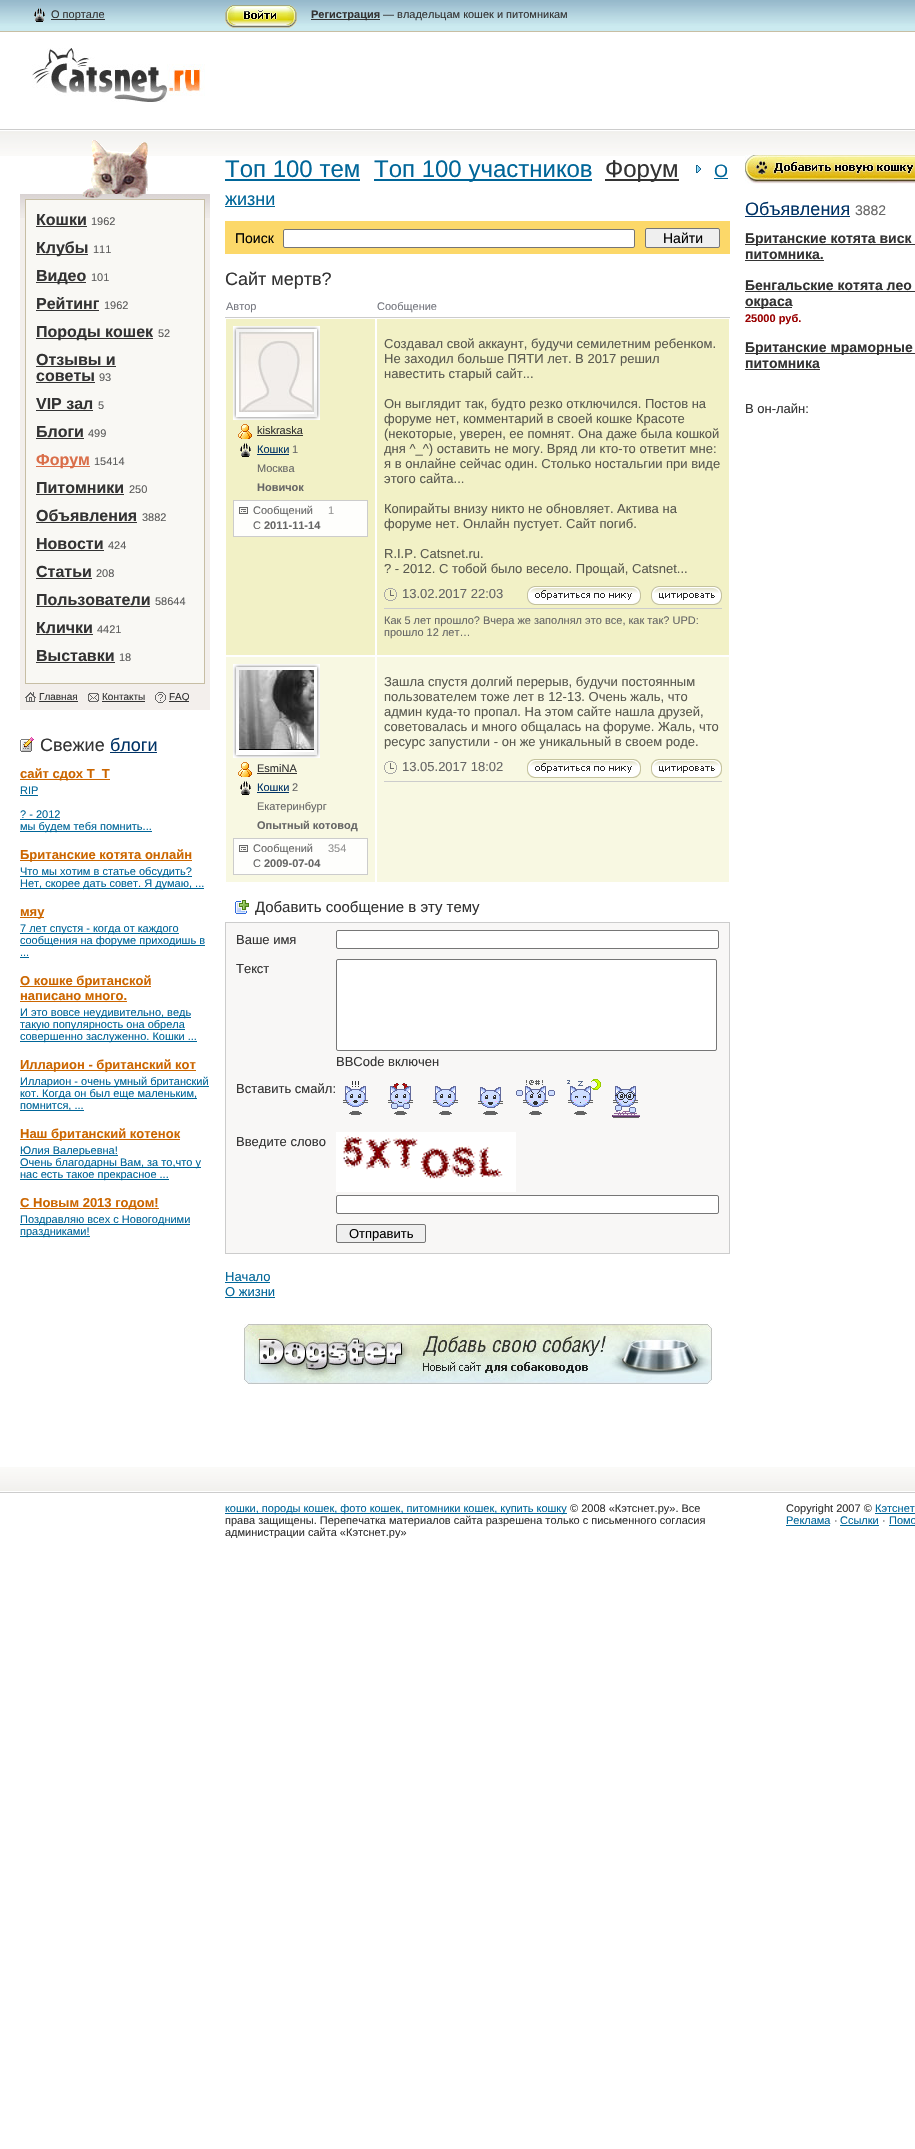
void draw(SkCanvas* canvas) {
  SkPaint paint;
  paint.setAntiAlias(true);
  auto face = [&](const char* family, int weight, float size, bool italic = false) {
    SkFontStyle style(weight, SkFontStyle::kNormal_Width,
      italic ? SkFontStyle::kItalic_Slant : SkFontStyle::kUpright_Slant);
    SkFont result(fontMgr->matchFamilyStyle(family, style), size);
    result.setSubpixel(true);
    return result;
  };
  auto paste = [&](const char* path, float x, float y, float w, float h) {
    auto image = SkImages::DeferredFromEncodedData(SkData::MakeFromFileName(path));
    canvas->drawImageRect(image, SkRect::MakeXYWH(x, y, w, h), SkSamplingOptions());
  };
  canvas->clear(0xffffffff);
  paste("img/1.png", 0, 1467, 915, 24);
  paste("img/2.png", 0, 0, 915, 31);
  paint.setColor(0xffc7bea3);
  canvas->drawRect(SkRect::MakeXYWH(0, 31, 915, 1), paint);
  paste("img/3.png", 34, 8, 11, 14);
  paint.setColor(0xff333333);
  canvas->drawRect(SkRect::MakeXYWH(51, 19, 54, 1), paint);
  paste("img/4.png", 225, 5, 72, 23);
  canvas->drawRect(SkRect::MakeXYWH(311, 19, 69, 1), paint);
  paste("img/5.png", 32, 48, 173, 54);
  paste("img/6.png", 0, 131, 915, 25);
  paint.setColor(0xffcccccc);
  canvas->drawRect(SkRect::MakeXYWH(0, 129, 915, 1), paint);
  paste("img/8.png", 20, 194, 190, 24);
  paste("img/7.png", 82, 140, 66, 58);
  paint.setColor(0xfff3efec);
  canvas->drawRect(SkRect::MakeXYWH(20, 218, 190, 492), paint);
  paint.setColor(0xfff9f8f4);
  canvas->drawRect(SkRect::MakeXYWH(25.5f, 199.5f, 179, 484), paint);
  paint.setStroke(true);
  paint.setStrokeWidth(1);
  paint.setColor(0xffc7bea4);
  canvas->drawRect(SkRect::MakeXYWH(25.5f, 199.5f, 179, 484), paint);
  paint.setStroke(false);
  {
    const struct { float x, y, w, h; SkColor color; } items[] = {
      {36, 226, 51, 1, 0xff333333},
      {36, 254, 52, 1, 0xff333333},
      {36, 282, 50, 1, 0xff333333},
      {36, 310, 63, 1, 0xff333333},
      {36, 338, 117, 1, 0xff333333},
      {36, 366, 80, 1, 0xff333333},
      {36, 382, 59, 1, 0xff333333},
      {36, 410, 57, 1, 0xff333333},
      {36, 438, 48, 1, 0xff333333},
      {36, 466, 54, 1, 0xffda6e49},
      {36, 494, 88, 1, 0xff333333},
      {36, 522, 101, 1, 0xff333333},
      {36, 550, 68, 1, 0xff333333},
      {36, 578, 56, 1, 0xff333333},
      {36, 606, 114, 1, 0xff333333},
      {36, 634, 57, 1, 0xff333333},
      {36, 662, 79, 1, 0xff333333},
    };
    for (auto [x, y, w, h, color] : items) {
      paint.setColor(color);
      canvas->drawRect(SkRect::MakeXYWH(x, y, w, h), paint);
    }
  }
  paste("img/9.png", 25, 692, 11, 10);
  canvas->drawRect(SkRect::MakeXYWH(39, 701, 39, 1), paint);
  paste("img/10.png", 88, 693, 11, 9);
  canvas->drawRect(SkRect::MakeXYWH(102, 701, 43, 1), paint);
  paste("img/11.png", 155, 692, 11, 11);
  canvas->drawRect(SkRect::MakeXYWH(169, 701, 20, 1), paint);
  paste("img/12.png", 20, 737, 14, 15);
  {
    const struct { float x, y, w, h; SkColor color; } items[] = {
      {110, 752, 47, 1, 0xff003366},
      {20, 779, 90, 1, 0xffcc6600},
      {20, 795, 18, 1, 0xff006699},
      {20, 819, 40, 1, 0xff006699},
      {20, 831, 132, 1, 0xff006699},
      {20, 860, 172, 1, 0xffcc6600},
      {20, 876, 172, 1, 0xff006699},
      {20, 888, 184, 1, 0xff006699},
      {20, 917, 24, 1, 0xffcc6600},
      {20, 933, 159, 1, 0xff006699},
      {20, 945, 185, 1, 0xff006699},
      {20, 957, 9, 1, 0xff006699},
      {20, 986, 131, 1, 0xffcc6600},
      {20, 1001, 107, 1, 0xffcc6600},
      {20, 1017, 171, 1, 0xff006699},
      {20, 1029, 165, 1, 0xff006699},
      {20, 1041, 177, 1, 0xff006699},
      {20, 1070, 176, 1, 0xffcc6600},
      {20, 1086, 189, 1, 0xff006699},
      {20, 1098, 177, 1, 0xff006699},
      {20, 1110, 64, 1, 0xff006699},
      {20, 1139, 160, 1, 0xffcc6600},
      {20, 1155, 98, 1, 0xff006699},
      {20, 1167, 181, 1, 0xff006699},
      {20, 1179, 149, 1, 0xff006699},
      {20, 1208, 139, 1, 0xffcc6600},
      {20, 1224, 170, 1, 0xff006699},
      {20, 1236, 70, 1, 0xff006699},
      {225, 179, 135, 2, 0xff006699},
      {374, 179, 218, 2, 0xff006699},
      {605, 179, 74, 2, 0xff333333},
    };
    for (auto [x, y, w, h, color] : items) {
      paint.setColor(color);
      canvas->drawRect(SkRect::MakeXYWH(x, y, w, h), paint);
    }
  }
  paste("img/13.png", 696, 165, 5, 8);
  {
    const struct { float x, y, w, h; SkColor color; } items[] = {
      {714, 178, 14, 1, 0xff006699},
      {225, 206, 50, 1, 0xff006699},
      {225, 221, 505, 33, 0xfffcd869},
    };
    for (auto [x, y, w, h, color] : items) {
      paint.setColor(color);
      canvas->drawRect(SkRect::MakeXYWH(x, y, w, h), paint);
    }
  }
  paint.setColor(0xffffffff);
  canvas->drawRoundRect(SkRect::MakeXYWH(283.5f, 229.5f, 351, 18), 1.5f, 1.5f, paint);
  paint.setStroke(true);
  paint.setColor(0xff767676);
  canvas->drawRoundRect(SkRect::MakeXYWH(283.5f, 229.5f, 351, 18), 1.5f, 1.5f, paint);
  paint.setStroke(false);
  paint.setColor(0xffefefef);
  canvas->drawRoundRect(SkRect::MakeXYWH(645.5f, 228.5f, 74, 19), 1.5f, 1.5f, paint);
  paint.setStroke(true);
  paint.setColor(0xff767676);
  canvas->drawRoundRect(SkRect::MakeXYWH(645.5f, 228.5f, 74, 19), 1.5f, 1.5f, paint);
  paint.setStroke(false);
  paint.setColor(0xffcccccc);
  canvas->drawRect(SkRect::MakeXYWH(225, 317, 505, 1), paint);
  paint.setColor(0xfff2f1c6);
  canvas->drawRect(SkRect::MakeXYWH(226, 319, 149, 336), paint);
  paste("img/14.png", 233, 326, 87, 94);
  paste("img/15.png", 239, 332, 75, 80);
  paste("img/16.png", 238, 424, 14, 15);
  paint.setColor(0xff333333);
  canvas->drawRect(SkRect::MakeXYWH(257, 435, 46, 1), paint);
  paste("img/17.png", 240, 443, 11, 14);
  paint.setColor(0xff003366);
  canvas->drawRect(SkRect::MakeXYWH(257, 454, 32, 1), paint);
  paint.setColor(0xfffefefc);
  canvas->drawRect(SkRect::MakeXYWH(233.5f, 500.5f, 134, 36), paint);
  paint.setStroke(true);
  paint.setColor(0xffcccccc);
  canvas->drawRect(SkRect::MakeXYWH(233.5f, 500.5f, 134, 36), paint);
  paste("img/18.png", 239, 507, 9, 7);
  paint.setStroke(false);
  paint.setColor(0xfff2f1c6);
  canvas->drawRect(SkRect::MakeXYWH(377, 319, 352, 336), paint);
  paint.setColor(0xffcccccc);
  canvas->drawRect(SkRect::MakeXYWH(384, 608, 338, 1), paint);
  paste("img/19.png", 384, 588, 13, 13);
  paste("img/20.png", 527, 586, 114, 19);
  paste("img/21.png", 651, 586, 71, 19);
  paint.setColor(0xfff8f8e2);
  canvas->drawRect(SkRect::MakeXYWH(377, 657, 352, 225), paint);
  paint.setColor(0xffcccccc);
  canvas->drawRect(SkRect::MakeXYWH(384, 781, 338, 1), paint);
  paste("img/22.png", 384, 761, 13, 13);
  paste("img/23.png", 527, 759, 114, 19);
  paste("img/24.png", 651, 759, 71, 19);
  paint.setColor(0xfff8f8e2);
  canvas->drawRect(SkRect::MakeXYWH(226, 657, 149, 225), paint);
  paste("img/14.png", 233, 664, 87, 94);
  paste("img/25.png", 239, 670, 75, 80);
  paste("img/26.png", 238, 762, 14, 15);
  paint.setColor(0xff333333);
  canvas->drawRect(SkRect::MakeXYWH(257, 773, 40, 1), paint);
  paste("img/27.png", 240, 781, 11, 14);
  paint.setColor(0xff003366);
  canvas->drawRect(SkRect::MakeXYWH(257, 792, 32, 1), paint);
  paint.setColor(0xfffefefc);
  canvas->drawRect(SkRect::MakeXYWH(233.5f, 838.5f, 134, 36), paint);
  paint.setStroke(true);
  paint.setColor(0xffcccccc);
  canvas->drawRect(SkRect::MakeXYWH(233.5f, 838.5f, 134, 36), paint);
  paste("img/18.png", 239, 845, 9, 7);
  paste("img/28.png", 235, 900, 14, 14);
  paint.setStroke(false);
  paint.setColor(0xfff8f7f6);
  canvas->drawRect(SkRect::MakeXYWH(225.5f, 922.5f, 504, 331), paint);
  paint.setStroke(true);
  paint.setColor(0xffcccccc);
  canvas->drawRect(SkRect::MakeXYWH(225.5f, 922.5f, 504, 331), paint);
  paint.setStroke(false);
  paint.setColor(0xffffffff);
  canvas->drawRoundRect(SkRect::MakeXYWH(336.5f, 930.5f, 382, 18), 1.5f, 1.5f, paint);
  paint.setStroke(true);
  paint.setColor(0xff767676);
  canvas->drawRoundRect(SkRect::MakeXYWH(336.5f, 930.5f, 382, 18), 1.5f, 1.5f, paint);
  paint.setStroke(false);
  paint.setColor(0xffffffff);
  canvas->drawRoundRect(SkRect::MakeXYWH(336.5f, 959.5f, 380, 91), 1.5f, 1.5f, paint);
  paint.setStroke(true);
  paint.setColor(0xff767676);
  canvas->drawRoundRect(SkRect::MakeXYWH(336.5f, 959.5f, 380, 91), 1.5f, 1.5f, paint);
  paste("img/29.png", 343, 1081, 25, 34);
  paste("img/30.png", 388, 1083, 25, 32);
  paste("img/31.png", 433, 1086, 25, 29);
  paste("img/32.png", 478, 1087, 25, 28);
  paste("img/33.png", 516, 1080, 39, 35);
  paste("img/34.png", 567, 1079, 34, 36);
  paste("img/35.png", 612, 1086, 28, 32);
  paste("img/36.png", 336, 1132, 180, 60);
  paint.setStroke(false);
  paint.setColor(0xffffffff);
  canvas->drawRoundRect(SkRect::MakeXYWH(336.5f, 1195.5f, 382, 18), 1.5f, 1.5f, paint);
  paint.setStroke(true);
  paint.setColor(0xff767676);
  canvas->drawRoundRect(SkRect::MakeXYWH(336.5f, 1195.5f, 382, 18), 1.5f, 1.5f, paint);
  paint.setStroke(false);
  paint.setColor(0xffefefef);
  canvas->drawRoundRect(SkRect::MakeXYWH(336.5f, 1224.5f, 89, 18), 1.5f, 1.5f, paint);
  paint.setStroke(true);
  paint.setColor(0xff767676);
  canvas->drawRoundRect(SkRect::MakeXYWH(336.5f, 1224.5f, 89, 18), 1.5f, 1.5f, paint);
  paint.setStroke(false);
  paint.setColor(0xff006699);
  canvas->drawRect(SkRect::MakeXYWH(225, 1282, 45, 1), paint);
  canvas->drawRect(SkRect::MakeXYWH(225, 1297, 50, 1), paint);
  paste("img/37.png", 244, 1324, 468, 60);
  paste("img/38.png", 745, 155, 170, 29);
  {
    const struct { float x, y, w, h; SkColor color; } items[] = {
      {745, 216, 105, 1, 0xff003366},
      {745, 244, 170, 1, 0xff333333},
      {745, 260, 79, 1, 0xff333333},
      {745, 291, 170, 1, 0xff333333},
      {745, 307, 47, 1, 0xff333333},
      {745, 353, 170, 1, 0xff333333},
      {745, 369, 75, 1, 0xff333333},
      {0, 1492, 915, 1, 0xffcccccc},
      {225, 1513, 342, 1, 0xff006699},
      {875, 1513, 40, 1, 0xff006699},
      {786, 1525, 44, 1, 0xff006699},
      {840, 1525, 39, 1, 0xff006699},
      {889, 1525, 26, 1, 0xff006699},
    };
    for (auto [x, y, w, h, color] : items) {
      paint.setColor(color);
      canvas->drawRect(SkRect::MakeXYWH(x, y, w, h), paint);
    }
  }
  auto f0 = face("Liberation Sans", 400, 11);
  paint.setColor(0xff333333);
  canvas->drawString("О портале", 51, 18, f0, paint);
  auto f1 = face("Liberation Sans", 700, 11);
  canvas->drawString("Регистрация", 311, 18, f1, paint);
  canvas->drawString("— владельцам кошек и питомникам", 383, 18, f0, paint);
  auto f2 = face("Liberation Sans", 700, 16);
  canvas->drawString("Кошки", 36, 225, f2, paint);
  paint.setColor(0xff5c5c5c);
  canvas->drawString("1962", 91, 225, f0, paint);
  paint.setColor(0xff333333);
  canvas->drawString("Клубы", 36, 253, f2, paint);
  paint.setColor(0xff5c5c5c);
  canvas->drawString("111", 93, 253, f0, paint);
  paint.setColor(0xff333333);
  canvas->drawString("Видео", 36, 281, f2, paint);
  paint.setColor(0xff5c5c5c);
  canvas->drawString("101", 91, 281, f0, paint);
  paint.setColor(0xff333333);
  canvas->drawString("Рейтинг", 36, 309, f2, paint);
  paint.setColor(0xff5c5c5c);
  canvas->drawString("1962", 104, 309, f0, paint);
  paint.setColor(0xff333333);
  canvas->drawString("Породы кошек", 36, 337, f2, paint);
  paint.setColor(0xff5c5c5c);
  canvas->drawString("52", 158, 337, f0, paint);
  paint.setColor(0xff333333);
  canvas->drawString("Отзывы и", 36, 365, f2, paint);
  canvas->drawString("советы", 36, 381, f2, paint);
  paint.setColor(0xff5c5c5c);
  canvas->drawString("93", 99, 381, f0, paint);
  paint.setColor(0xff333333);
  canvas->drawString("VIP зал", 36, 409, f2, paint);
  paint.setColor(0xff5c5c5c);
  canvas->drawString("5", 98, 409, f0, paint);
  paint.setColor(0xff333333);
  canvas->drawString("Блоги", 36, 437, f2, paint);
  paint.setColor(0xff5c5c5c);
  canvas->drawString("499", 88, 437, f0, paint);
  paint.setColor(0xffda6e49);
  canvas->drawString("Форум", 36, 465, f2, paint);
  paint.setColor(0xff5c5c5c);
  canvas->drawString("15414", 94, 465, f0, paint);
  paint.setColor(0xff333333);
  canvas->drawString("Питомники", 36, 493, f2, paint);
  paint.setColor(0xff5c5c5c);
  canvas->drawString("250", 129, 493, f0, paint);
  paint.setColor(0xff333333);
  canvas->drawString("Объявления", 36, 521, f2, paint);
  paint.setColor(0xff5c5c5c);
  canvas->drawString("3882", 142, 521, f0, paint);
  paint.setColor(0xff333333);
  canvas->drawString("Новости", 36, 549, f2, paint);
  paint.setColor(0xff5c5c5c);
  canvas->drawString("424", 108, 549, f0, paint);
  paint.setColor(0xff333333);
  canvas->drawString("Статьи", 36, 577, f2, paint);
  paint.setColor(0xff5c5c5c);
  canvas->drawString("208", 96, 577, f0, paint);
  paint.setColor(0xff333333);
  canvas->drawString("Пользователи", 36, 605, f2, paint);
  paint.setColor(0xff5c5c5c);
  canvas->drawString("58644", 155, 605, f0, paint);
  paint.setColor(0xff333333);
  canvas->drawString("Клички", 36, 633, f2, paint);
  paint.setColor(0xff5c5c5c);
  canvas->drawString("4421", 97, 633, f0, paint);
  paint.setColor(0xff333333);
  canvas->drawString("Выставки", 36, 661, f2, paint);
  paint.setColor(0xff5c5c5c);
  canvas->drawString("18", 119, 661, f0, paint);
  auto f3 = face("Liberation Sans", 400, 10);
  paint.setColor(0xff333333);
  {
    const struct { const char* s; float x, y; } items[] = {
      {"Главная", 39, 700},
      {"Контакты", 102, 700},
      {"FAQ", 169, 700},
    };
    for (auto [s, x, y] : items) {
      canvas->drawString(s, x, y, f3, paint);
    }
  }
  auto f4 = face("Liberation Sans", 400, 18);
  canvas->drawString("Свежие", 40, 751, f4, paint);
  paint.setColor(0xff003366);
  canvas->drawString("блоги", 110, 751, f4, paint);
  auto f5 = face("Liberation Sans", 700, 13);
  paint.setColor(0xffcc6600);
  canvas->drawString("сайт сдох T_T", 20, 778, f5, paint);
  paint.setColor(0xff006699);
  {
    const struct { const char* s; float x, y; } items[] = {
      {"RIP", 20, 794},
      {"? - 2012", 20, 818},
      {"мы будем тебя помнить...", 20, 830},
    };
    for (auto [s, x, y] : items) {
      canvas->drawString(s, x, y, f0, paint);
    }
  }
  paint.setColor(0xffcc6600);
  canvas->drawString("Британские котята онлайн", 20, 859, f5, paint);
  paint.setColor(0xff006699);
  canvas->drawString("Что мы хотим в статье обсудить?", 20, 875, f0, paint);
  canvas->drawString("Нет, скорее дать совет. Я думаю, ...", 20, 887, f0, paint);
  paint.setColor(0xffcc6600);
  canvas->drawString("мяу", 20, 916, f5, paint);
  paint.setColor(0xff006699);
  {
    const struct { const char* s; float x, y; } items[] = {
      {"7 лет спустя - когда от каждого", 20, 932},
      {"сообщения на форуме приходишь в", 20, 944},
      {"...", 20, 956},
    };
    for (auto [s, x, y] : items) {
      canvas->drawString(s, x, y, f0, paint);
    }
  }
  paint.setColor(0xffcc6600);
  canvas->drawString("О кошке британской", 20, 985, f5, paint);
  canvas->drawString("написано много.", 20, 1000, f5, paint);
  paint.setColor(0xff006699);
  {
    const struct { const char* s; float x, y; } items[] = {
      {"И это вовсе неудивительно, ведь", 20, 1016},
      {"такую популярность она обрела", 20, 1028},
      {"совершенно заслуженно. Кошки ...", 20, 1040},
    };
    for (auto [s, x, y] : items) {
      canvas->drawString(s, x, y, f0, paint);
    }
  }
  paint.setColor(0xffcc6600);
  canvas->drawString("Илларион - британский кот", 20, 1069, f5, paint);
  paint.setColor(0xff006699);
  {
    const struct { const char* s; float x, y; } items[] = {
      {"Илларион - очень умный британский", 20, 1085},
      {"кот. Когда он был еще маленьким,", 20, 1097},
      {"помнится, ...", 20, 1109},
    };
    for (auto [s, x, y] : items) {
      canvas->drawString(s, x, y, f0, paint);
    }
  }
  paint.setColor(0xffcc6600);
  canvas->drawString("Наш британский котенок", 20, 1138, f5, paint);
  paint.setColor(0xff006699);
  {
    const struct { const char* s; float x, y; } items[] = {
      {"Юлия Валерьевна!", 20, 1154},
      {"Очень благодарны Вам, за то,что у", 20, 1166},
      {"нас есть такое прекрасное ...", 20, 1178},
    };
    for (auto [s, x, y] : items) {
      canvas->drawString(s, x, y, f0, paint);
    }
  }
  paint.setColor(0xffcc6600);
  canvas->drawString("С Новым 2013 годом!", 20, 1207, f5, paint);
  paint.setColor(0xff006699);
  canvas->drawString("Поздравляю всех с Новогодними", 20, 1223, f0, paint);
  canvas->drawString("праздниками!", 20, 1235, f0, paint);
  auto f6 = face("Liberation Sans", 400, 24);
  canvas->drawString("Топ 100 тем", 225, 177, f6, paint);
  canvas->drawString("Топ 100 участников", 374, 177, f6, paint);
  paint.setColor(0xff333333);
  canvas->drawString("Форум", 605, 177, f6, paint);
  paint.setColor(0xff006699);
  canvas->drawString("О", 714, 177, f4, paint);
  canvas->drawString("жизни", 225, 205, f4, paint);
  auto f7 = face("Liberation Sans", 400, 14);
  paint.setColor(0xff000000);
  canvas->drawString("Поиск", 235, 243, f7, paint);
  canvas->drawString("Найти", 663, 243, f7, paint);
  paint.setColor(0xff333333);
  canvas->drawString("Сайт мертв?", 225, 285, f4, paint);
  paint.setColor(0xff74767e);
  canvas->drawString("Автор", 226, 310, f0, paint);
  canvas->drawString("Сообщение", 377, 310, f0, paint);
  paint.setColor(0xff333333);
  canvas->drawString("kiskraska", 257, 434, f0, paint);
  paint.setColor(0xff003366);
  canvas->drawString("Кошки", 257, 453, f0, paint);
  paint.setColor(0xff666666);
  canvas->drawString("1", 292, 453, f0, paint);
  canvas->drawString("Москва", 257, 472, f0, paint);
  canvas->drawString("Новичок", 257, 491, f1, paint);
  canvas->drawString("Сообщений", 253, 514, f0, paint);
  paint.setColor(0xff939393);
  canvas->drawString("1", 328, 514, f0, paint);
  paint.setColor(0xff666666);
  canvas->drawString("С", 253, 529, f0, paint);
  canvas->drawString("2011-11-14", 264, 529, f1, paint);
  auto f8 = face("Liberation Sans", 400, 13);
  paint.setColor(0xff595950);
  {
    const struct { const char* s; float x, y; } items[] = {
      {"Создавал свой аккаунт, будучи семилетним ребенком.", 384, 348},
      {"Не заходил больше ПЯТИ лет. В 2017 решил", 384, 363},
      {"навестить старый сайт...", 384, 378},
      {"Он выглядит так, будто резко отключился. Постов на", 384, 408},
      {"форуме нет, комментарий в своей кошке Красоте", 384, 423},
      {"(некоторые, уверен, ее помнят. Она даже была кошкой", 384, 438},
      {"дня ^_^) оставить не могу. Вряд ли кто-то ответит мне:", 384, 453},
      {"я в онлайне сейчас один. Столько ностальгии при виде", 384, 468},
      {"этого сайта...", 384, 483},
      {"Копирайты внизу никто не обновляет. Актива на", 384, 513},
      {"форуме нет. Онлайн пустует. Сайт погиб.", 384, 528},
      {"R.I.P. Catsnet.ru.", 384, 558},
      {"? - 2012. С тобой было весело. Прощай, Catsnet...", 384, 573},
    };
    for (auto [s, x, y] : items) {
      canvas->drawString(s, x, y, f8, paint);
    }
  }
  paint.setColor(0xff666666);
  canvas->drawString("13.02.2017 22:03", 402, 598, f8, paint);
  canvas->drawString("Как 5 лет прошло? Вчера же заполнял это все, как так? UPD:", 384, 624, f0, paint);
  canvas->drawString("прошло 12 лет…", 384, 636, f0, paint);
  paint.setColor(0xff595950);
  {
    const struct { const char* s; float x, y; } items[] = {
      {"Зашла спустя долгий перерыв, будучи постоянным", 384, 686},
      {"пользователем тоже лет в 12-13. Очень жаль, что", 384, 701},
      {"админ куда-то пропал. На этом сайте нашла друзей,", 384, 716},
      {"советовалась и много общалась на форуме. Жаль, что", 384, 731},
      {"ресурс запустили - он же уникальный в своем роде.", 384, 746},
    };
    for (auto [s, x, y] : items) {
      canvas->drawString(s, x, y, f8, paint);
    }
  }
  paint.setColor(0xff666666);
  canvas->drawString("13.05.2017 18:02", 402, 771, f8, paint);
  paint.setColor(0xff333333);
  canvas->drawString("EsmiNA", 257, 772, f0, paint);
  paint.setColor(0xff003366);
  canvas->drawString("Кошки", 257, 791, f0, paint);
  paint.setColor(0xff666666);
  canvas->drawString("2", 292, 791, f0, paint);
  canvas->drawString("Екатеринбург", 257, 810, f0, paint);
  canvas->drawString("Опытный котовод", 257, 829, f1, paint);
  canvas->drawString("Сообщений", 253, 852, f0, paint);
  paint.setColor(0xff939393);
  canvas->drawString("354", 328, 852, f0, paint);
  paint.setColor(0xff666666);
  canvas->drawString("С", 253, 867, f0, paint);
  canvas->drawString("2009-07-04", 264, 867, f1, paint);
  auto f9 = face("Liberation Sans", 400, 15);
  paint.setColor(0xff333333);
  canvas->drawString("Добавить сообщение в эту тему", 255, 912, f9, paint);
  {
    const struct { const char* s; float x, y; } items[] = {
      {"Ваше имя", 236, 944},
      {"Текст", 236, 973},
      {"BBCode включен", 336, 1066},
      {"Вставить смайл:", 236, 1093},
      {"Введите слово", 236, 1146},
    };
    for (auto [s, x, y] : items) {
      canvas->drawString(s, x, y, f8, paint);
    }
  }
  paint.setColor(0xff000000);
  canvas->drawString("Отправить", 349, 1238, f8, paint);
  paint.setColor(0xff006699);
  canvas->drawString("Начало", 225, 1281, f8, paint);
  canvas->drawString("О жизни", 225, 1296, f8, paint);
  paint.setColor(0xff003366);
  canvas->drawString("Объявления", 745, 215, f4, paint);
  paint.setColor(0xff666666);
  canvas->drawString("3882", 855, 215, f7, paint);
  auto f10 = face("Liberation Sans", 700, 14);
  paint.setColor(0xff333333);
  {
    const struct { const char* s; float x, y; } items[] = {
      {"Британские котята виск", 745, 243},
      {"питомника.", 745, 259},
      {"Бенгальские котята лео", 745, 290},
      {"окраса", 745, 306},
    };
    for (auto [s, x, y] : items) {
      canvas->drawString(s, x, y, f10, paint);
    }
  }
  paint.setColor(0xff990000);
  canvas->drawString("25000 руб.", 745, 322, f1, paint);
  paint.setColor(0xff333333);
  canvas->drawString("Британские мраморные", 745, 352, f10, paint);
  canvas->drawString("питомника", 745, 368, f10, paint);
  canvas->drawString("В он-лайн:", 745, 413, f8, paint);
  paint.setColor(0xff006699);
  canvas->drawString("кошки, породы кошек, фото кошек, питомники кошек, купить кошку", 225, 1512, f0, paint);
  paint.setColor(0xff333333);
  canvas->drawString("© 2008 «Кэтснет.ру». Все", 570, 1512, f0, paint);
  canvas->drawString("права защищены. Перепечатка материалов сайта разрешена только с письменного согласия", 225, 1524, f0, paint);
  canvas->save();
  canvas->clipRect(SkRect::MakeXYWH(0, 1493, 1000, 45));
  canvas->drawString("администрации сайта «Кэтснет.ру»", 225, 1536, f0, paint);
  canvas->restore();
  canvas->drawString("Copyright 2007 ©", 786, 1512, f0, paint);
  paint.setColor(0xff006699);
  canvas->drawString("Кэтснет", 875, 1512, f0, paint);
  canvas->drawString("Реклама", 786, 1524, f0, paint);
  paint.setColor(0xff333333);
  canvas->drawString("·", 834, 1524, f0, paint);
  paint.setColor(0xff006699);
  canvas->drawString("Ссылки", 840, 1524, f0, paint);
  paint.setColor(0xff333333);
  canvas->drawString("·", 882, 1524, f0, paint);
  paint.setColor(0xff006699);
  canvas->drawString("Помо", 889, 1524, f0, paint);
}
